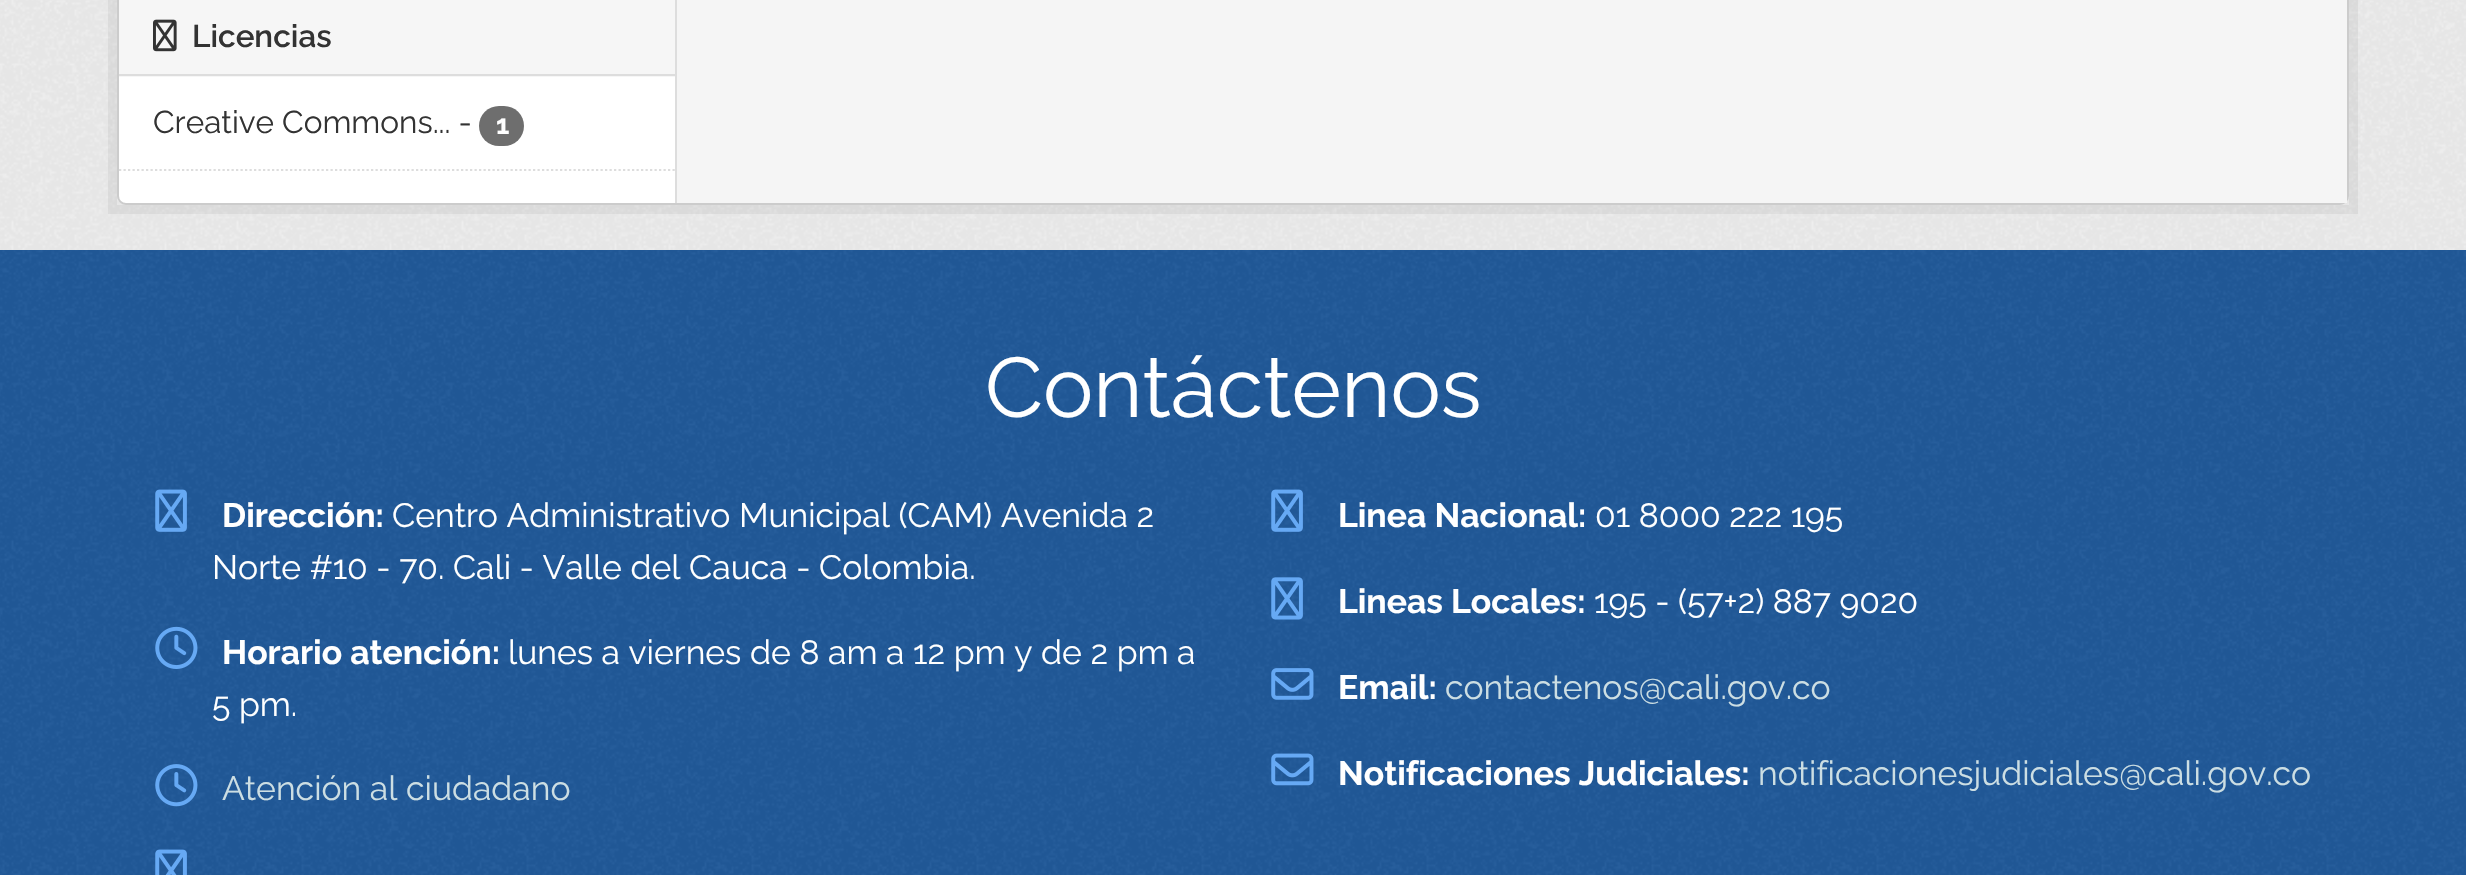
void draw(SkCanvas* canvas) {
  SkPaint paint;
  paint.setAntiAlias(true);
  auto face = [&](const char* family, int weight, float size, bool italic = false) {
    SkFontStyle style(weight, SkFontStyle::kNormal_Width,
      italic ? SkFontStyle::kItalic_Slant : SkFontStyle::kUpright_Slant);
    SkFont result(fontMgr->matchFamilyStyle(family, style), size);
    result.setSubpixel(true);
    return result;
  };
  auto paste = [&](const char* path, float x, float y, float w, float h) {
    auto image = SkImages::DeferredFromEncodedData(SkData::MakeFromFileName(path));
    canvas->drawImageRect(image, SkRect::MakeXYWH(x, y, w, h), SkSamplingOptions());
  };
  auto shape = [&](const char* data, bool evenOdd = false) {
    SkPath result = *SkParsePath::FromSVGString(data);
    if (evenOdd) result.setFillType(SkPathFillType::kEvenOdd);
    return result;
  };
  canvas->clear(0xff215a9a);
  paint.setColor(0xffeeeeee);
  canvas->drawRect(SkRect::MakeXYWH(0, 0, 2466, 250), paint);
  paste("img/1.png", 0, 0, 2466, 250);
  paint.setStroke(true);
  paint.setStrokeWidth(9);
  paint.setColor(0x0d000000);
  canvas->drawRect(SkRect::MakeXYWH(112.5f, -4.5f, 2241, 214), paint);
  paint.setStroke(false);
  paint.setColor(0xffffffff);
  canvas->drawRoundRect(SkRect::MakeXYWH(118, -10, 2230, 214), 8, 8, paint);
  paint.setStroke(true);
  paint.setStrokeWidth(2);
  paint.setColor(0xffcccccc);
  canvas->drawRoundRect(SkRect::MakeXYWH(118, -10, 2230, 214), 8, 8, paint);
  paint.setStroke(false);
  paint.setColor(0xfff6f6f6);
  canvas->drawRect(SkRect::MakeXYWH(119, 0, 556, 77), paint);
  paint.setColor(0xffdddddd);
  canvas->drawRect(SkRect::MakeXYWH(119, 74, 556, 2), paint);
  paste("img/2.png", 153, 19, 24, 33);
  paint.setColor(0xff6e6e6e);
  canvas->drawRoundRect(SkRect::MakeXYWH(479, 106, 45, 40), 20, 20, paint);
  paint.setStroke(true);
  paint.setStrokeWidth(2.2f);
  paint.setColor(0xffdddddd);
  paint.setPathEffect(SkDashPathEffect::Make({{2.25f, 2.25f}}, 0));
  canvas->drawPath(shape("M119 170H675"), paint);
  paint.setPathEffect(nullptr);
  paint.setStroke(false);
  canvas->drawRect(SkRect::MakeXYWH(675, 0, 2, 203), paint);
  paint.setColor(0xfff5f5f5);
  canvas->drawRect(SkRect::MakeXYWH(677, 0, 1670, 203), paint);
  paste("img/3.png", 0, 250, 2466, 625);
  paste("img/4.png", 155, 489, 32, 43);
  paste("img/5.png", 155, 626, 43, 43);
  paste("img/6.png", 155, 764, 43, 43);
  paste("img/7.png", 155, 849, 32, 26);
  paste("img/8.png", 1271, 489, 32, 43);
  paste("img/9.png", 1271, 577, 32, 43);
  paste("img/10.png", 1271, 668, 43, 32);
  paste("img/11.png", 1271, 753, 43, 33);
  auto f0 = face("Raleway", 600, 31.5f);
  paint.setColor(0xff333333);
  canvas->drawString("Licencias", 192, 47, f0, paint);
  auto f1 = face("Raleway", 400, 31.5f);
  canvas->drawString("Creative Commons... -", 153, 133, f1, paint);
  auto f2 = face("Raleway", 700, 27);
  paint.setColor(0xffffffff);
  canvas->drawString("1", 496, 134, f2, paint);
  auto f3 = face("Raleway", 400, 84.5f);
  canvas->drawString("Contáctenos", 985, 417, f3, paint);
  auto f4 = face("Raleway", 700, 33.75f);
  canvas->drawString("Dirección:", 222, 527, f4, paint);
  auto f5 = face("Raleway", 400, 33.75f);
  canvas->drawString("Centro Administrativo Municipal (CAM) Avenida 2", 392, 527, f5, paint);
  canvas->drawString("Norte #10 - 70. Cali - Valle del Cauca - Colombia.", 212, 579, f5, paint);
  canvas->drawString("Horario atención:", 222, 664, f4, paint);
  canvas->drawString("lunes a viernes de 8 am a 12 pm y de 2 pm a", 508, 664, f5, paint);
  canvas->drawString("5 pm.", 212, 716, f5, paint);
  paint.setColor(0xffccdee3);
  canvas->drawString("Atención al ciudadano", 222, 800, f5, paint);
  paint.setColor(0xffffffff);
  canvas->drawString("Linea Nacional:", 1338, 527, f4, paint);
  canvas->drawString("01 8000 222 195", 1595, 527, f5, paint);
  canvas->drawString("Lineas Locales:", 1338, 613, f4, paint);
  canvas->drawString("195 - (57+2) 887 9020", 1594, 613, f5, paint);
  canvas->drawString("Email:", 1338, 699, f4, paint);
  paint.setColor(0xffccdee3);
  canvas->drawString("contactenos@cali.gov.co", 1445, 699, f5, paint);
  paint.setColor(0xffffffff);
  canvas->drawString("Notificaciones Judiciales:", 1338, 785, f4, paint);
  paint.setColor(0xffccdee3);
  canvas->drawString("notificacionesjudiciales@cali.gov.co", 1758, 785, f5, paint);
}
